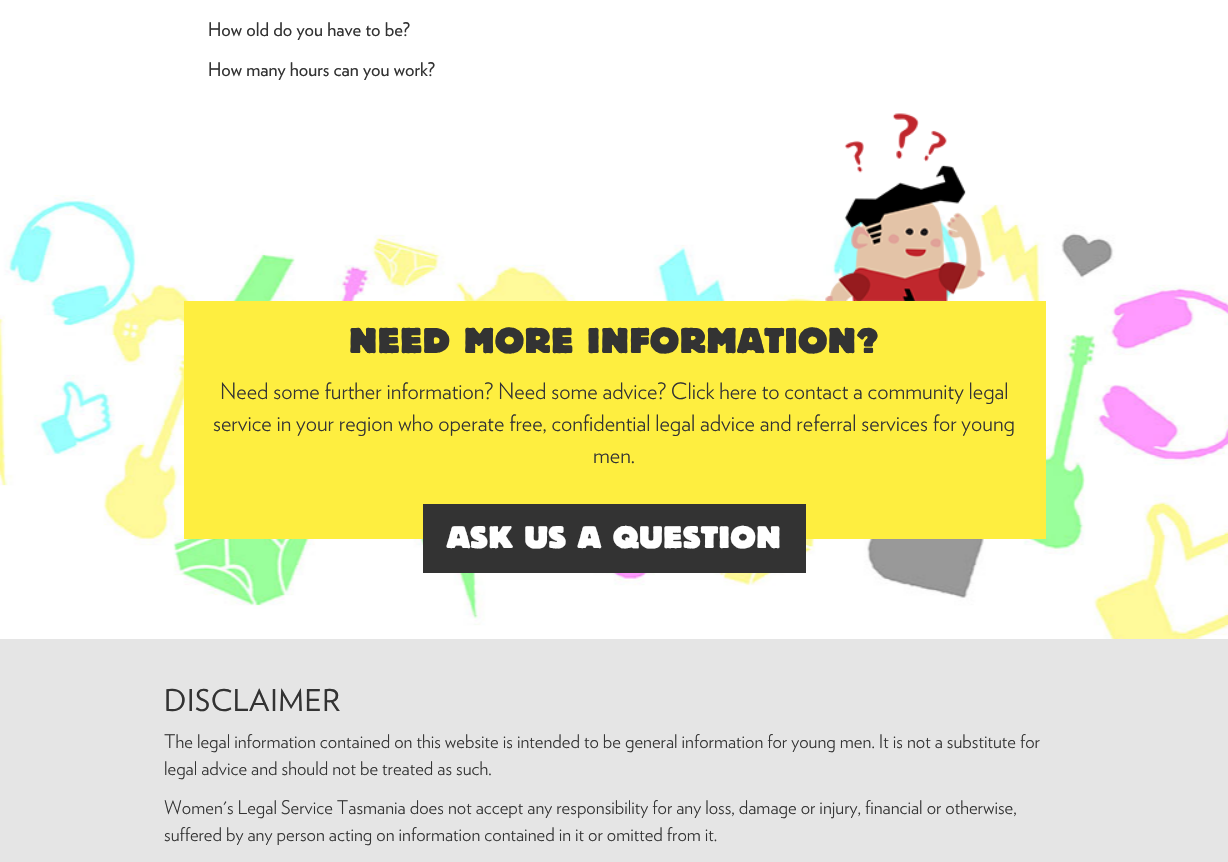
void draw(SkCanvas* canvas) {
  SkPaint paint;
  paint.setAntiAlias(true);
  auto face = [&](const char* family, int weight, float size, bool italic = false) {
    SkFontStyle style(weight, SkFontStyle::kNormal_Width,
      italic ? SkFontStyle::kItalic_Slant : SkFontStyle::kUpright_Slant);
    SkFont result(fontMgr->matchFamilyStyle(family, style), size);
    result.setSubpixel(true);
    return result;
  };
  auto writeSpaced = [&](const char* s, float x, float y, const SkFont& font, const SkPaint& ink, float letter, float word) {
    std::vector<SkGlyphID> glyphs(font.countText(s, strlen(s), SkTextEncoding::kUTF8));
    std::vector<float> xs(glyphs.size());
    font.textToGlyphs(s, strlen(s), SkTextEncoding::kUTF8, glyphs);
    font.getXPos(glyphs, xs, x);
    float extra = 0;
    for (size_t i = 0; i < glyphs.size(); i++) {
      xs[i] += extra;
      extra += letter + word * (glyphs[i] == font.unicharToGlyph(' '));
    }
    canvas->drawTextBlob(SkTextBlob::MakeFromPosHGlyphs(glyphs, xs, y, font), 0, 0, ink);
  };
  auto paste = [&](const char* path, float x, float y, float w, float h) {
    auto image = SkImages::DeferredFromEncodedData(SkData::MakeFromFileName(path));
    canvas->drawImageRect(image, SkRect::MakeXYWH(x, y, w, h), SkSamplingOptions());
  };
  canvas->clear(0xffffffff);
  paste("img/1.png", 0, 195, 1228, 444);
  paste("img/2.png", 825, 113, 161, 188);
  {
    const struct { float x, y, w, h; SkColor color; } items[] = {
      {184, 301, 862, 238, 0xfffeee40},
      {423, 504, 383, 69, 0xff333333},
      {0, 639, 1228, 223, 0xffe5e5e5},
    };
    for (auto [x, y, w, h, color] : items) {
      paint.setColor(color);
      canvas->drawRect(SkRect::MakeXYWH(x, y, w, h), paint);
    }
  }
  auto f0 = face("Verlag", 400, 18.75f);
  paint.setColor(0xff333333);
  canvas->drawString("How old do you have to be?", 208, 36, f0, paint);
  canvas->drawString("How many hours can you work?", 208, 76, f0, paint);
  auto f1 = face("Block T", 400, 37.5f);
  writeSpaced("NEED MORE INFORMATION?", 349, 353, f1, paint, 0.6f, 0);
  auto f2 = face("Verlag", 300, 22.5f);
  {
    const struct { const char* s; float x, y; } items[] = {
      {"Need some further information? Need some advice? Click here to contact a community legal", 220, 399},
      {"service in your region who operate free, confidential legal advice and referral services for young", 213, 431},
      {"men.", 593, 463},
    };
    for (auto [s, x, y] : items) {
      canvas->drawString(s, x, y, f2, paint);
    }
  }
  auto f3 = face("Block T", 400, 32.5f);
  paint.setColor(0xffffffff);
  writeSpaced("ASK US A QUESTION", 447, 548, f3, paint, 0.6f, 0);
  auto f4 = face("Verlag", 400, 30);
  paint.setColor(0xff333333);
  writeSpaced("DISCLAIMER", 164, 711, f4, paint, 0.6f, 0);
  auto f5 = face("Verlag", 300, 18.75f);
  {
    const struct { const char* s; float x, y; } items[] = {
      {"The legal information contained on this website is intended to be general information for young men. It is not a substitute for", 164, 748},
      {"legal advice and should not be treated as such.", 164, 775},
      {"Women's Legal Service Tasmania does not accept any responsibility for any loss, damage or injury, financial or otherwise,", 164, 814},
      {"suffered by any person acting on information contained in it or omitted from it.", 164, 841},
    };
    for (auto [s, x, y] : items) {
      canvas->drawString(s, x, y, f5, paint);
    }
  }
}
